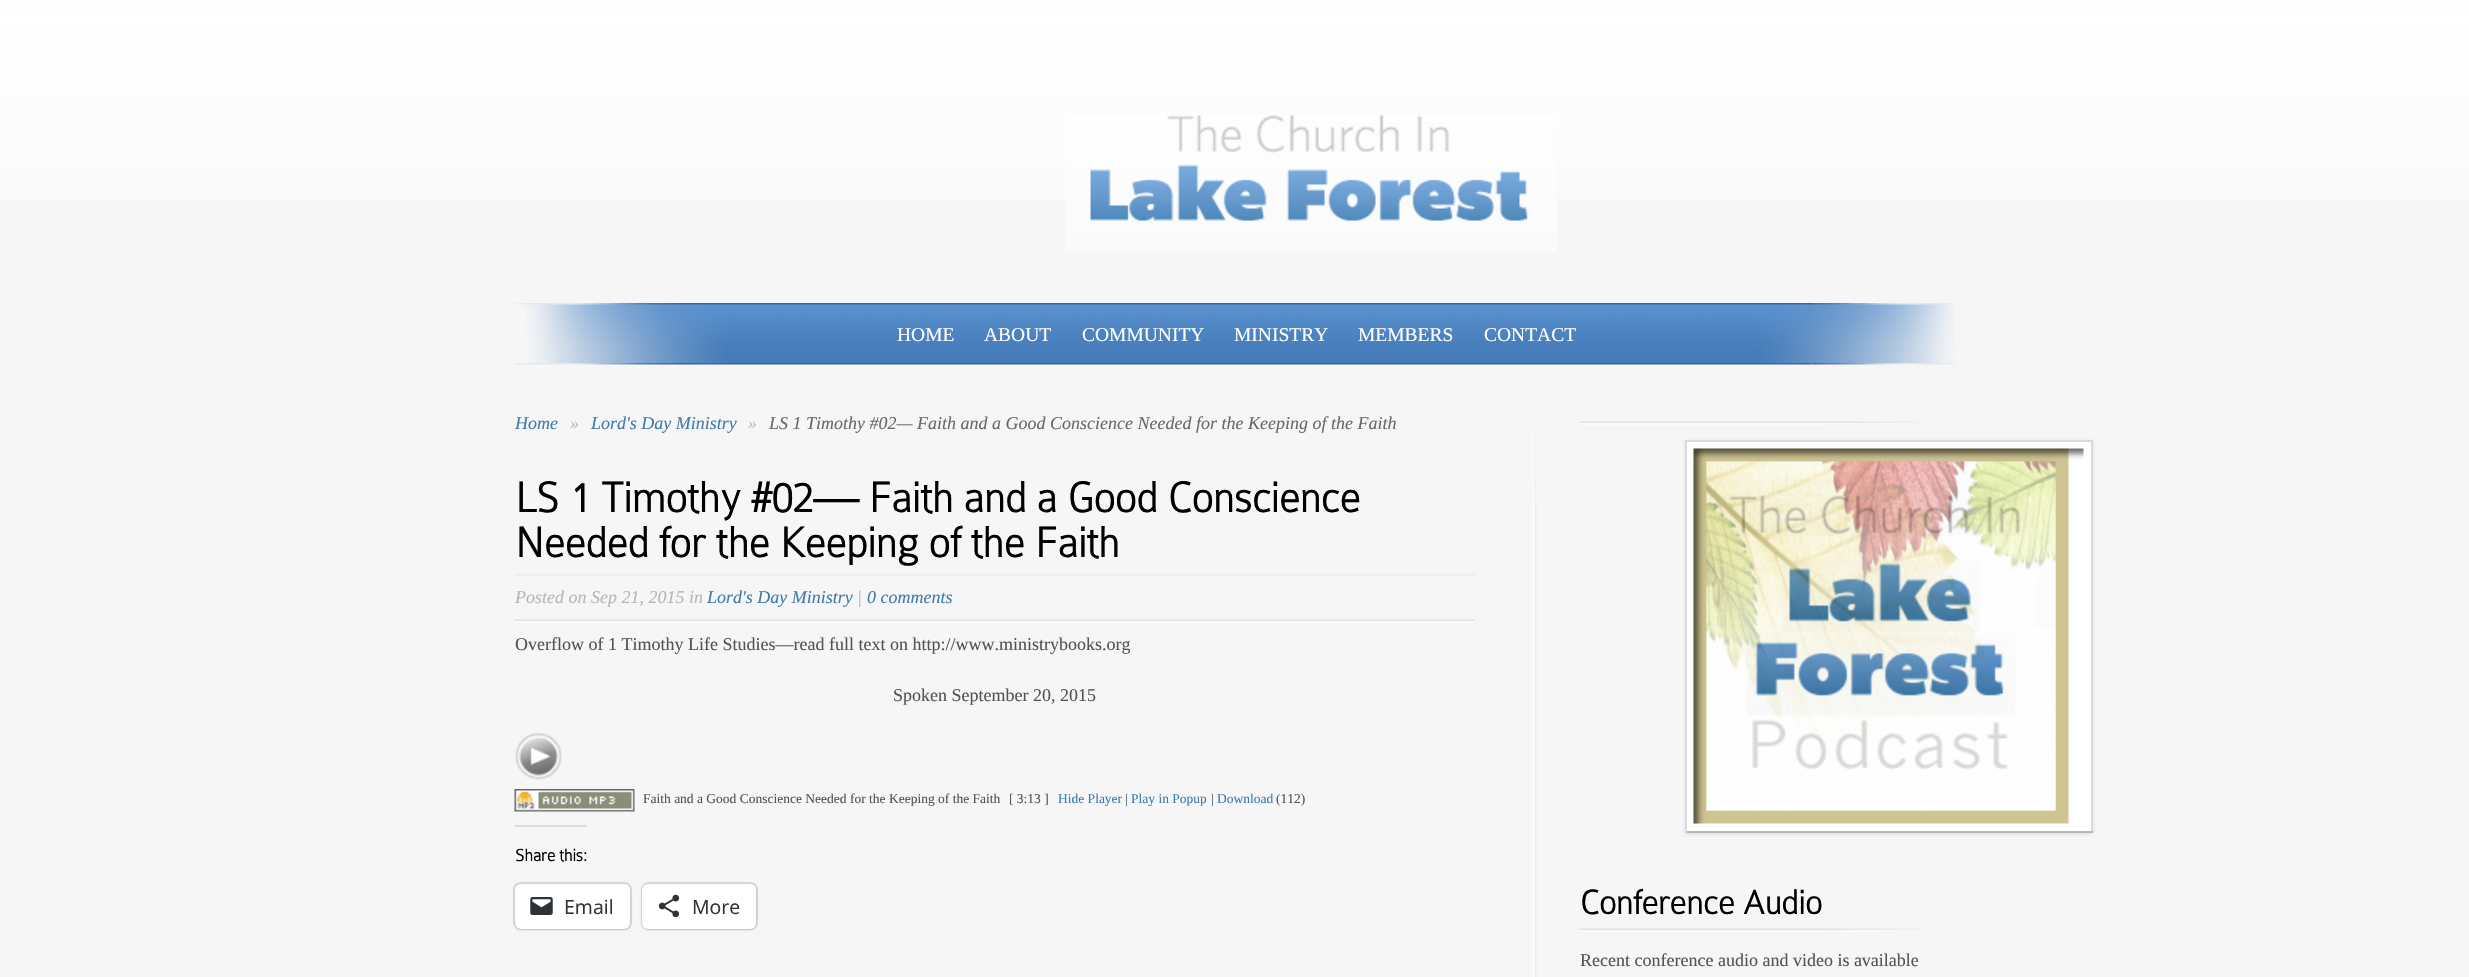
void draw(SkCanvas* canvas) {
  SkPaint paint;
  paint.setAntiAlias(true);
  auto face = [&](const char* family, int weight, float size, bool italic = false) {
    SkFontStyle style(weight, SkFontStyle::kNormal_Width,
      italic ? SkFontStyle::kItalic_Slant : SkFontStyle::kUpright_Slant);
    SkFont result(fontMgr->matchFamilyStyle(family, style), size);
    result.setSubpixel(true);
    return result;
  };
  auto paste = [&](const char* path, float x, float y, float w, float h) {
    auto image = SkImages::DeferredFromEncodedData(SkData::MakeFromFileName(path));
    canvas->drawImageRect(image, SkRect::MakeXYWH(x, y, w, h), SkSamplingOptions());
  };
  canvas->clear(0xfff6f6f6);
  paste("img/1.png", 0, 0, 2469, 199);
  paste("img/2.png", 1065, 115, 492, 137);
  paste("img/3.png", 526, 303, 1429, 60);
  paste("img/4.png", 514, 303, 1438, 2);
  paste("img/6.png", 1533, 364, 4, 613);
  paste("img/5.png", 514, 363, 1441, 2);
  paste("img/7.png", 1533, 365, 4, 137);
  paint.setColor(0xffefefef);
  canvas->drawRect(SkRect::MakeXYWH(514, 573, 961, 3), paint);
  paste("img/8.png", 514, 619, 961, 4);
  paste("img/9.png", 515, 732, 47, 48);
  paste("img/10.png", 514, 789, 121, 23);
  paint.setColor(0xffdcdcde);
  canvas->drawRect(SkRect::MakeXYWH(515, 825, 72, 2), paint);
  paint.setStroke(true);
  paint.setStrokeWidth(2);
  paint.setColor(0xffd8d8d8);
  canvas->drawRoundRect(SkRect::MakeXYWH(514, 883, 117, 46), 7, 7, paint);
  paint.setStroke(false);
  paint.setColor(0x1f000000);
  paint.setMaskFilter(SkMaskFilter::MakeBlur(kNormal_SkBlurStyle, 1.5f));
  canvas->drawRoundRect(SkRect::MakeXYWH(515, 885, 115, 45), 6, 6, paint);
  paint.setMaskFilter(nullptr);
  paint.setColor(0xffffffff);
  canvas->drawRoundRect(SkRect::MakeXYWH(515, 884, 115, 45), 6, 6, paint);
  paste("img/11.png", 530, 897, 23, 18);
  paint.setStroke(true);
  paint.setColor(0xffd8d8d8);
  canvas->drawRoundRect(SkRect::MakeXYWH(642, 883, 115, 46), 7, 7, paint);
  paint.setStroke(false);
  paint.setColor(0x1f000000);
  paint.setMaskFilter(SkMaskFilter::MakeBlur(kNormal_SkBlurStyle, 1.5f));
  canvas->drawRoundRect(SkRect::MakeXYWH(642, 885, 114, 45), 6, 6, paint);
  paint.setMaskFilter(nullptr);
  paint.setColor(0xffffffff);
  canvas->drawRoundRect(SkRect::MakeXYWH(642, 884, 114, 45), 6, 6, paint);
  paste("img/12.png", 658, 894, 22, 24);
  paste("img/13.png", 1579, 421, 342, 4);
  paint.setColor(0x1a000000);
  paint.setMaskFilter(SkMaskFilter::MakeBlur(kNormal_SkBlurStyle, 1.5f));
  canvas->drawRect(SkRect::MakeXYWH(1685, 441, 408, 393), paint);
  paint.setMaskFilter(nullptr);
  {
    const struct { float x, y, w, h; SkColor color; } items[] = {
      {1687, 442, 404, 389, 0xffffffff},
      {1685, 440, 408, 2, 0xffdadada},
      {2091, 440, 2, 393, 0xffdadada},
      {1685, 831, 408, 2, 0xffb7b7b7},
      {1685, 440, 2, 393, 0xffdadada},
    };
    for (auto [x, y, w, h, color] : items) {
      paint.setColor(color);
      canvas->drawRect(SkRect::MakeXYWH(x, y, w, h), paint);
    }
  }
  paste("img/14.png", 1693, 448, 376, 376);
  paste("img/15.png", 1693, 448, 391, 376);
  paste("img/13.png", 1579, 928, 342, 4);
  auto f0 = face("Liberation Serif", 400, 19.5f);
  paint.setColor(0xffffffff);
  {
    const struct { const char* s; float x, y; } items[] = {
      {"HOME", 897, 341},
      {"ABOUT", 984, 341},
      {"COMMUNITY", 1082, 341},
      {"MINISTRY", 1234, 341},
      {"MEMBERS", 1358, 341},
      {"CONTACT", 1484, 341},
    };
    for (auto [s, x, y] : items) {
      canvas->drawString(s, x, y, f0, paint);
    }
  }
  auto f1 = face("Liberation Serif", 400, 18, true);
  paint.setColor(0xff3e7aad);
  canvas->drawString("Home", 515, 429, f1, paint);
  paint.setColor(0xffb6b6b6);
  canvas->drawString("»", 570, 429, f1, paint);
  paint.setColor(0xff3e7aad);
  canvas->drawString("Lord's Day Ministry", 591, 429, f1, paint);
  paint.setColor(0xffb6b6b6);
  canvas->drawString("»", 748, 429, f1, paint);
  paint.setColor(0xff686868);
  canvas->drawString("LS 1 Timothy #02— Faith and a Good Conscience Needed for the Keeping of the Faith", 769, 429, f1, paint);
  auto f2 = face("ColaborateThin", 700, 45);
  paint.setColor(0xff000000);
  canvas->drawString("LS 1 Timothy #02— Faith and a Good Conscience", 515, 512, f2, paint);
  canvas->drawString("Needed for the Keeping of the Faith", 515, 557, f2, paint);
  paint.setColor(0xffb6b6b6);
  canvas->drawString("Posted on Sep 21, 2015 in", 515, 603, f1, paint);
  paint.setColor(0xff3e7aad);
  canvas->drawString("Lord's Day Ministry", 707, 603, f1, paint);
  paint.setColor(0xffb6b6b6);
  canvas->drawString("|", 857, 603, f1, paint);
  paint.setColor(0xff3e7aad);
  canvas->drawString("0 comments", 867, 603, f1, paint);
  auto f3 = face("Liberation Serif", 400, 18);
  paint.setColor(0xff525252);
  canvas->drawString("Overflow of 1 Timothy Life Studies—read full text on http://www.ministrybooks.org", 515, 650, f3, paint);
  canvas->drawString("Spoken September 20, 2015", 893, 701, f3, paint);
  auto f4 = face("Liberation Serif", 400, 13.5f);
  canvas->drawString("Faith and a Good Conscience Needed for the Keeping of the Faith", 643, 803, f4, paint);
  canvas->drawString("[ 3:13 ]", 1009, 803, f4, paint);
  paint.setColor(0xff3e7aad);
  canvas->drawString("Hide Player", 1058, 803, f4, paint);
  paint.setColor(0xff525252);
  canvas->drawString("|", 1125, 803, f4, paint);
  paint.setColor(0xff3e7aad);
  canvas->drawString("Play in Popup", 1131, 803, f4, paint);
  paint.setColor(0xff525252);
  canvas->drawString("|", 1211, 803, f4, paint);
  paint.setColor(0xff3e7aad);
  canvas->drawString("Download", 1217, 803, f4, paint);
  paint.setColor(0xff525252);
  canvas->drawString("(112)", 1276, 803, f4, paint);
  auto f5 = face("ColaborateThin", 700, 18);
  paint.setColor(0xff000000);
  canvas->drawString("Share this:", 515, 861, f5, paint);
  auto f6 = face("Open Sans", 400, 19.5f);
  paint.setColor(0xff2c3338);
  canvas->drawString("Email", 564, 914, f6, paint);
  canvas->drawString("More", 692, 914, f6, paint);
  auto f7 = face("ColaborateThin", 700, 36);
  paint.setColor(0xff000000);
  canvas->drawString("Conference Audio", 1580, 914, f7, paint);
  paint.setColor(0xff525252);
  canvas->drawString("Recent conference audio and video is available", 1580, 966, f3, paint);
}
